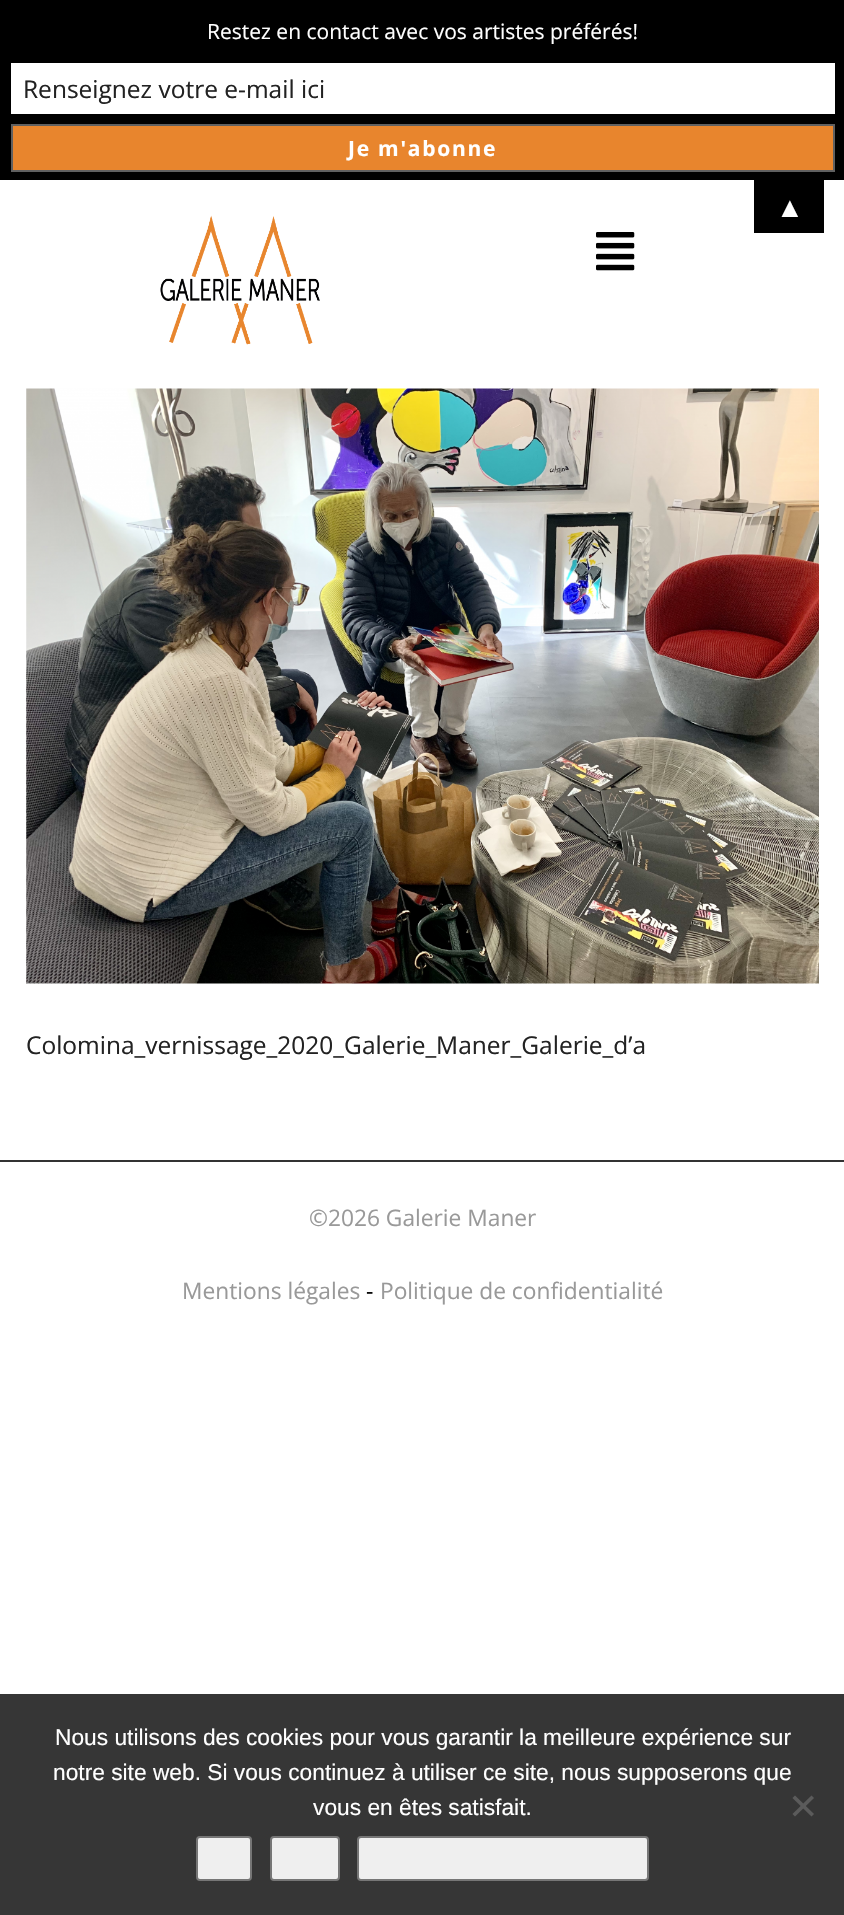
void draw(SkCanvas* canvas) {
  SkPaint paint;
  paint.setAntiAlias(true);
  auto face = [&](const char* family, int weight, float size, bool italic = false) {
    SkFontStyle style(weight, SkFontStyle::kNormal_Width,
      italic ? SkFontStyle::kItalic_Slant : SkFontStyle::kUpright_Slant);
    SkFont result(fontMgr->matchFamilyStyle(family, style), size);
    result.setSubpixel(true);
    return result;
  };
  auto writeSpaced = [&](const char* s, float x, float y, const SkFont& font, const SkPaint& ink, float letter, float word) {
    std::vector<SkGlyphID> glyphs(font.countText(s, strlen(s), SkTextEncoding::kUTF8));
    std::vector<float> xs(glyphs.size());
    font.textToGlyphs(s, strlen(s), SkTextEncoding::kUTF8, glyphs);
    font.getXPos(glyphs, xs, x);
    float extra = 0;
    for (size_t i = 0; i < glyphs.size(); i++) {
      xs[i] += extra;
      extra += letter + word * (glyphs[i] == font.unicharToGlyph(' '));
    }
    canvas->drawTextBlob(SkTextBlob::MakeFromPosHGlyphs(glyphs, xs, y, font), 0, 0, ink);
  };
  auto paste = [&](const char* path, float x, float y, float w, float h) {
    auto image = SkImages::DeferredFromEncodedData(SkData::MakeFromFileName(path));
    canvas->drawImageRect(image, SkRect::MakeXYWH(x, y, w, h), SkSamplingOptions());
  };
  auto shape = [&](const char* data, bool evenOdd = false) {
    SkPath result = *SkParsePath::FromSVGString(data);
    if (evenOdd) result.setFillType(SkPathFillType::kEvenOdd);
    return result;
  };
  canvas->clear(0xffffffff);
  paint.setColor(0xff000000);
  canvas->drawRect(SkRect::MakeXYWH(0, 0, 844, 180), paint);
  paint.setColor(0xffffffff);
  canvas->drawRect(SkRect::MakeXYWH(11, 63, 824, 51), paint);
  paint.setColor(0xffe8852d);
  canvas->drawRect(SkRect::MakeXYWH(12, 125, 822, 46), paint);
  paint.setStroke(true);
  paint.setStrokeWidth(2);
  paint.setColor(0xff606060);
  canvas->drawRect(SkRect::MakeXYWH(12, 125, 822, 46), paint);
  paint.setStroke(false);
  paint.setColor(0xff000000);
  canvas->drawRect(SkRect::MakeXYWH(754, 180, 70, 53), paint);
  paste("img/1.png", 160, 215, 160, 130);
  paste("img/2.png", 596, 232, 39, 39);
  paste("img/3.png", 26, 388, 793, 596);
  paint.setColor(0xff333333);
  canvas->drawRect(SkRect::MakeXYWH(0, 1160, 844, 2), paint);
  paint.setColor(0xff363636);
  canvas->drawRect(SkRect::MakeXYWH(0, 1694, 844, 221), paint);
  paint.setColor(0xff5b5b5b);
  canvas->drawPath(shape("M811.5 1795.5L814 1798L795 1816.5L792.5 1814Z"), paint);
  canvas->drawPath(shape("M792.5 1798L795 1795.5L814 1814L811.5 1816.5Z"), paint);
  paint.setColor(0xffefefef);
  canvas->drawRoundRect(SkRect::MakeXYWH(197, 1837, 54, 43), 3, 3, paint);
  paint.setStroke(true);
  paint.setColor(0xff767676);
  canvas->drawRoundRect(SkRect::MakeXYWH(197, 1837, 54, 43), 3, 3, paint);
  paint.setStroke(false);
  paint.setColor(0xffefefef);
  canvas->drawRoundRect(SkRect::MakeXYWH(271, 1837, 68, 43), 3, 3, paint);
  paint.setStroke(true);
  paint.setColor(0xff767676);
  canvas->drawRoundRect(SkRect::MakeXYWH(271, 1837, 68, 43), 3, 3, paint);
  paint.setStroke(false);
  paint.setColor(0xffefefef);
  canvas->drawRoundRect(SkRect::MakeXYWH(358, 1837, 290, 43), 3, 3, paint);
  paint.setStroke(true);
  paint.setColor(0xff767676);
  canvas->drawRoundRect(SkRect::MakeXYWH(358, 1837, 290, 43), 3, 3, paint);
  auto f0 = face("Open Sans", 400, 21);
  paint.setStroke(false);
  paint.setColor(0xffffffff);
  canvas->drawString("Restez en contact avec vos artistes préférés!", 207, 39, f0, paint);
  auto f1 = face("Open Sans", 400, 24.5f);
  paint.setColor(0xff222222);
  canvas->drawString("Renseignez votre e-mail ici", 23, 98, f1, paint);
  auto f2 = face("Open Sans", 700, 21);
  paint.setColor(0xffffffff);
  writeSpaced("Je m'abonne", 348, 156, f2, paint, 1.75f, 0);
  auto f3 = face("Liberation Serif", 400, 28);
  canvas->drawString("▲", 776, 217, f3, paint);
  paint.setColor(0xff222222);
  canvas->drawString("Colomina_vernissage_2020_Galerie_Maner_Galerie_d’a", 26, 1054, f1, paint);
  auto f4 = face("Open Sans", 400, 22.75f);
  paint.setColor(0xff999999);
  canvas->drawString("©2026 Galerie Maner", 309, 1226, f4, paint);
  canvas->drawString("Mentions légales", 182, 1299, f4, paint);
  paint.setColor(0xff000000);
  canvas->drawString("-", 366, 1299, f4, paint);
  paint.setColor(0xff999999);
  canvas->drawString("Politique de confidentialité", 380, 1299, f4, paint);
  auto f5 = face("Liberation Sans", 400, 22.75f);
  paint.setColor(0xffffffff);
  {
    const struct { const char* s; float x, y; } items[] = {
      {"Nous utilisons des cookies pour vous garantir la meilleure expérience sur", 55, 1745},
      {"notre site web. Si vous continuez à utiliser ce site, nous supposerons que", 53, 1780},
      {"vous en êtes satisfait.", 313, 1815},
    };
    for (auto [s, x, y] : items) {
      canvas->drawString(s, x, y, f5, paint);
    }
  }
}
